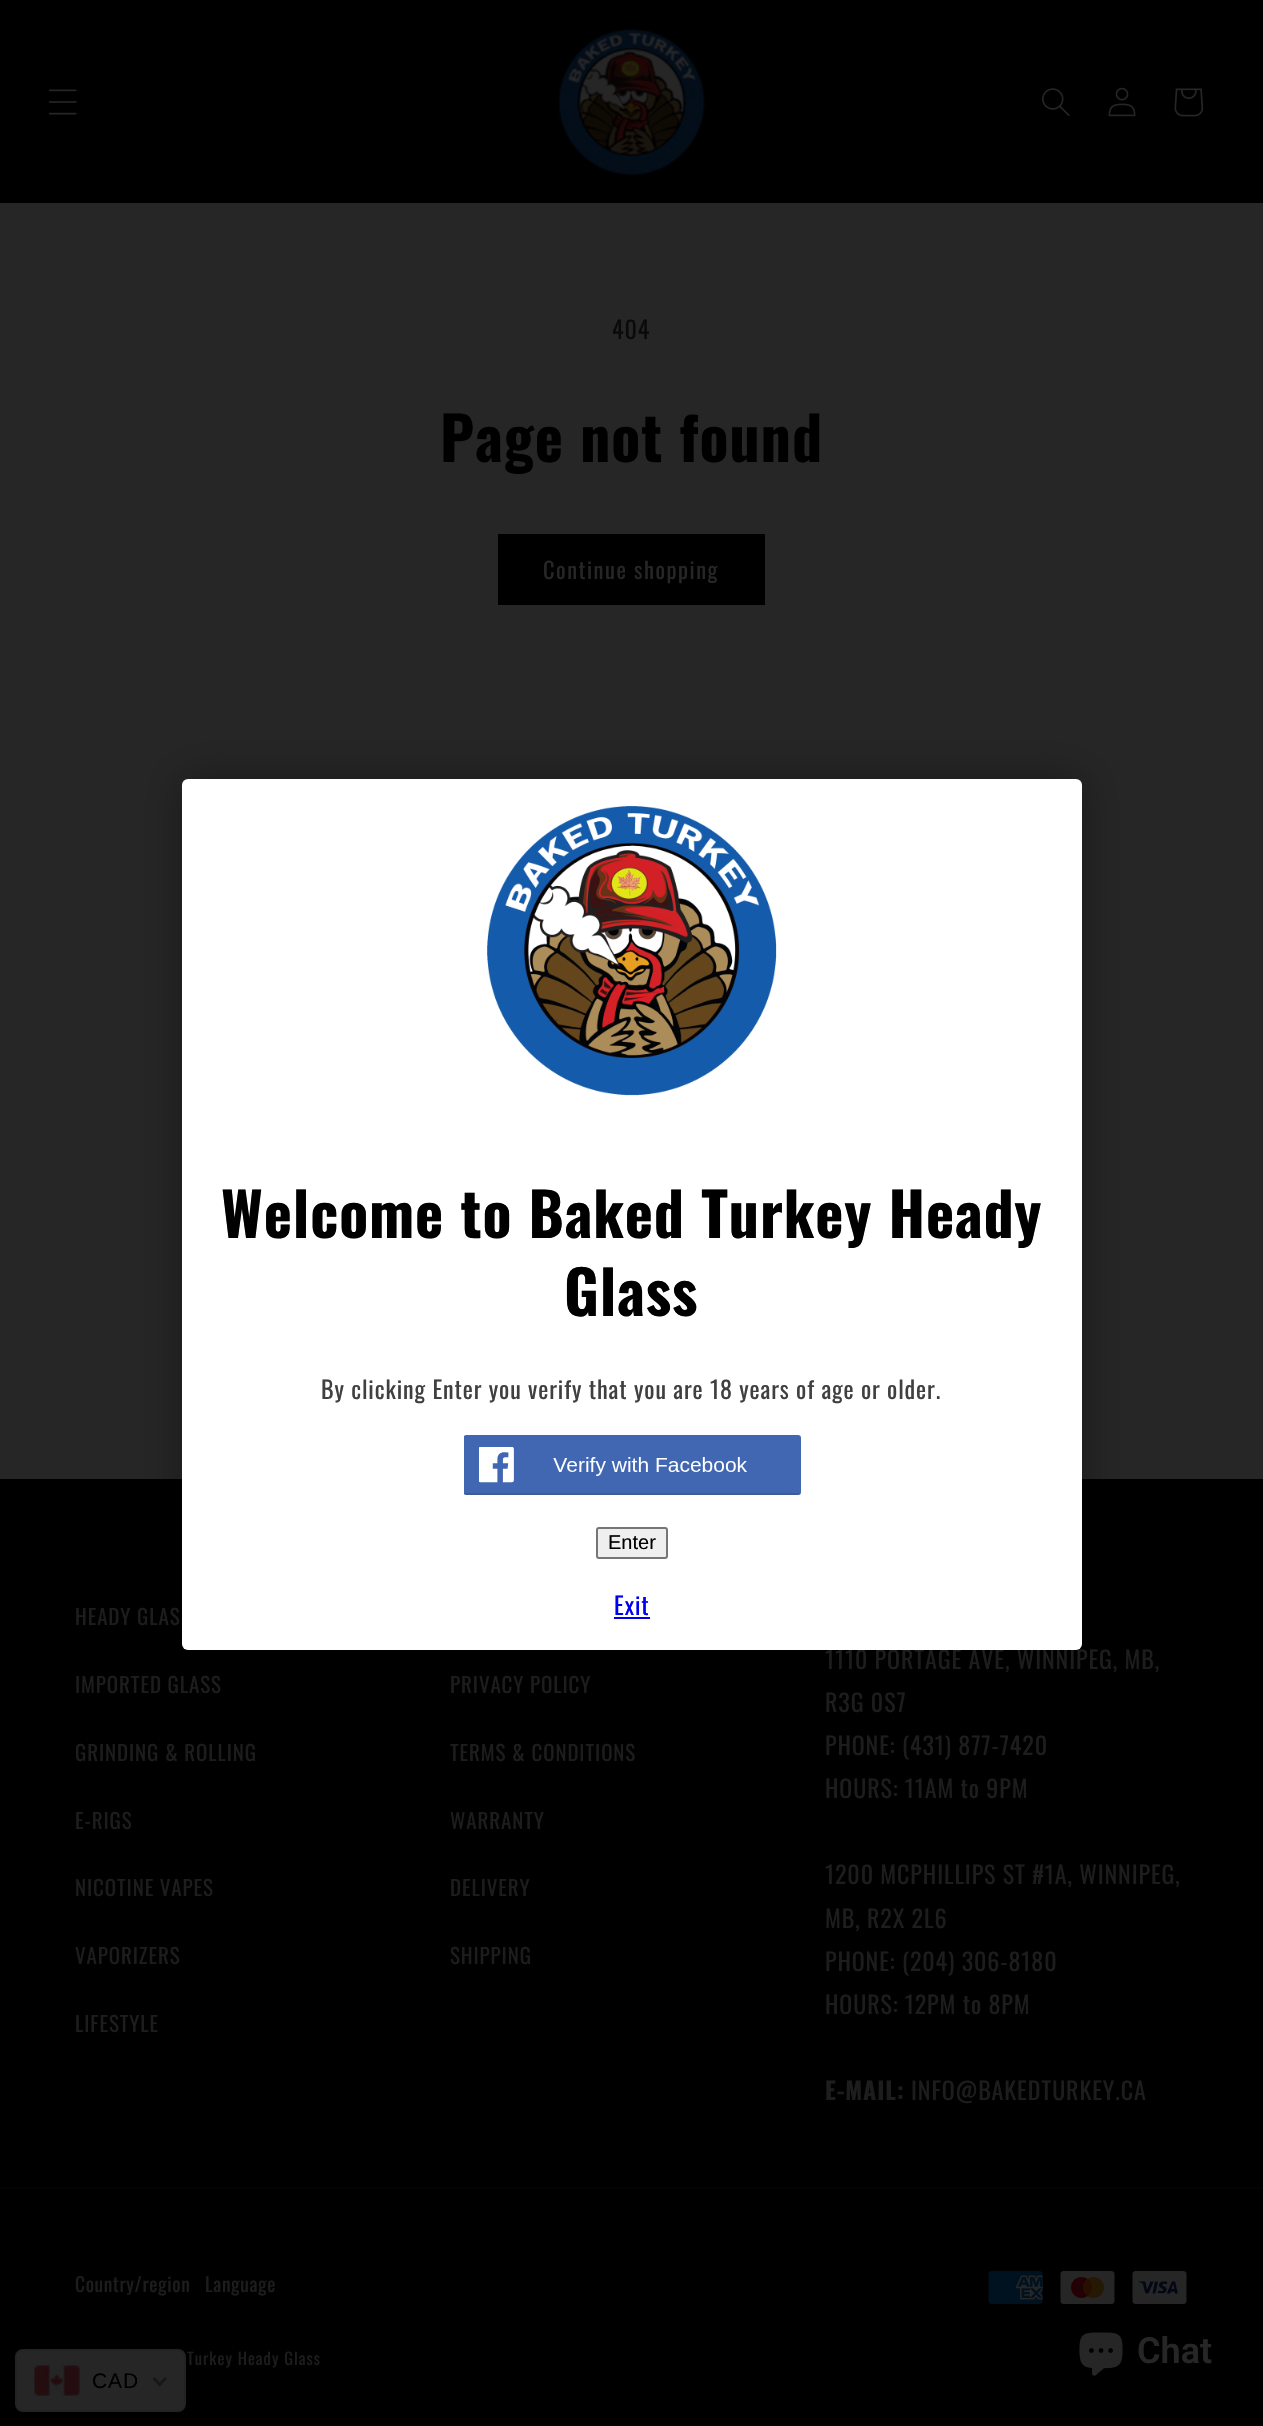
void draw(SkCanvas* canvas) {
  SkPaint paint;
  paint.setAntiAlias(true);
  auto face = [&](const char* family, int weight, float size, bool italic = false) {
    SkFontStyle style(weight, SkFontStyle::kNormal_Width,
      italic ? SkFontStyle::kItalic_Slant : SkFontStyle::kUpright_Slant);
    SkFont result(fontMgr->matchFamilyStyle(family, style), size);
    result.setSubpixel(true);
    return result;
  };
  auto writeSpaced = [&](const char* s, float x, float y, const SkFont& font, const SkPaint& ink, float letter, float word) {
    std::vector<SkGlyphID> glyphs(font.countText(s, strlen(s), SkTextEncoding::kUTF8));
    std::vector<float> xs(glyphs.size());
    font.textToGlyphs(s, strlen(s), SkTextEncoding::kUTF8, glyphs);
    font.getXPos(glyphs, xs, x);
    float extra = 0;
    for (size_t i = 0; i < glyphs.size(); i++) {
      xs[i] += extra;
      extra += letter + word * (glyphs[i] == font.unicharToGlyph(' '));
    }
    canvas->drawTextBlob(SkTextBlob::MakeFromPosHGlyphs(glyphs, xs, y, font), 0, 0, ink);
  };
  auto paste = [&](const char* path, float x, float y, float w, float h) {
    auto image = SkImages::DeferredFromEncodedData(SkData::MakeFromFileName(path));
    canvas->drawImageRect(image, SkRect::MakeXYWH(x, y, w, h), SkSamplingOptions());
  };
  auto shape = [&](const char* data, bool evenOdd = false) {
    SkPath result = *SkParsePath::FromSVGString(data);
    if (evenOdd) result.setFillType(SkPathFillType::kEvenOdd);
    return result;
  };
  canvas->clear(0xff262626);
  paint.setColor(0xff000000);
  canvas->drawRect(SkRect::MakeXYWH(0, 0, 1263, 203), paint);
  paste("img/1.png", 48, 89, 29, 26);
  paste("img/2.png", 558, 28, 148, 148);
  paste("img/3.png", 1042, 88, 28, 28);
  paste("img/4.png", 1108, 87, 28, 30);
  paste("img/5.png", 1174, 88, 30, 29);
  canvas->drawRect(SkRect::MakeXYWH(498, 534, 267, 71), paint);
  canvas->drawRect(SkRect::MakeXYWH(0, 1479, 1263, 947), paint);
  paint.setColor(0x59000000);
  paint.setMaskFilter(SkMaskFilter::MakeBlur(kNormal_SkBlurStyle, 22.5f));
  canvas->drawRoundRect(SkRect::MakeXYWH(182, 779, 900, 871), 6, 6, paint);
  paint.setMaskFilter(nullptr);
  paint.setColor(0xff030303);
  canvas->drawRect(SkRect::MakeXYWH(0, 2187, 1263, 2), paint);
  paste("img/8.png", 988, 2271, 55, 33);
  paste("img/9.png", 1060, 2271, 55, 33);
  paste("img/10.png", 1132, 2271, 55, 33);
  paste("img/11.png", 1079, 2332, 44, 44);
  paint.setColor(0xff262626);
  canvas->drawRoundRect(SkRect::MakeXYWH(16, 2350, 169, 61), 7, 7, paint);
  paint.setStroke(true);
  paint.setStrokeWidth(2);
  paint.setColor(0xff232323);
  canvas->drawRoundRect(SkRect::MakeXYWH(16, 2350, 169, 61), 7, 7, paint);
  paste("img/12.png", 34, 2365, 46, 31);
  paint.setStroke(false);
  paint.setColor(0xff171717);
  canvas->drawPath(shape("M165 2377L167 2379L159.5 2386.5L157.5 2384.5Z"), paint);
  canvas->drawPath(shape("M154.5 2377L162 2384.5L159.5 2386.5L152.5 2379Z"), paint);
  auto f0 = face("Oswald", 400, 24);
  paint.setColor(0xff0a0a0a);
  writeSpaced("404", 612, 339, f0, paint, 0.9f, 0);
  auto f1 = face("Oswald", 700, 60);
  paint.setColor(0xff000000);
  writeSpaced("Page not found", 440, 462, f1, paint, 0.9f, 0);
  auto f2 = face("Oswald", 400, 22.5f);
  paint.setColor(0xff262626);
  writeSpaced("Continue shopping", 543, 579, f2, paint, 1.5f, 0);
  auto f3 = face("Oswald", 400, 21);
  paint.setColor(0xff1d1d1d);
  {
    const struct { const char* s; float x, y; } items[] = {
      {"HEADY GLAS", 75, 1625},
      {"IMPORTED GLASS", 75, 1693},
      {"GRINDING & ROLLING", 75, 1761},
      {"E-RIGS", 75, 1829},
      {"NICOTINE VAPES", 75, 1896},
      {"VAPORIZERS", 75, 1964},
      {"LIFESTYLE", 75, 2032},
      {"PRIVACY POLICY", 450, 1693},
      {"TERMS & CONDITIONS", 450, 1761},
      {"WARRANTY", 450, 1829},
      {"DELIVERY", 450, 1896},
      {"SHIPPING", 450, 1964},
    };
    for (auto [s, x, y] : items) {
      writeSpaced(s, x, y, f3, paint, 0.9f, 0);
    }
  }
  writeSpaced("1110 PORTAGE AVE, WINNIPEG, MB,", 825, 1669, f0, paint, 0.9f, 0);
  paint.setColor(0xffffffff);
  canvas->drawRoundRect(SkRect::MakeXYWH(182, 779, 900, 871), 6, 6, paint);
  paste("img/7.png", 464, 1435, 337, 60);
  paint.setColor(0xff0000ee);
  writeSpaced("Exit", 614, 1615, f0, paint, 0.9f, 0);
  canvas->drawRect(SkRect::MakeXYWH(614, 1617, 36, 2), paint);
  paint.setColor(0xffefefef);
  canvas->drawRoundRect(SkRect::MakeXYWH(597, 1528, 70, 30), 2, 2, paint);
  paint.setStroke(true);
  paint.setColor(0xff767676);
  canvas->drawRoundRect(SkRect::MakeXYWH(597, 1528, 70, 30), 2, 2, paint);
  auto f4 = face("Liberation Sans", 400, 20);
  paint.setStroke(false);
  paint.setColor(0xff000000);
  canvas->drawString("Enter", 608, 1549, f4, paint);
  paint.setColor(0xff404040);
  writeSpaced("By clicking Enter you verify that you are 18 years of age or older.", 321, 1399, f0, paint, 0.9f, 0);
  paint.setColor(0xff000000);
  writeSpaced("Glass", 564, 1316, f1, paint, 0.9f, 0);
  writeSpaced("Welcome to Baked Turkey Heady", 221, 1238, f1, paint, 0.9f, 0);
  paste("img/6.png", 487, 806, 290, 290);
  paint.setColor(0xff1d1d1d);
  {
    const struct { const char* s; float x, y; } items[] = {
      {"R3G 0S7", 825, 1712},
      {"PHONE: (431) 877-7420", 825, 1755},
      {"HOURS: 11AM to 9PM", 825, 1798},
      {"1200 MCPHILLIPS ST #1A, WINNIPEG,", 825, 1884},
      {"MB, R2X 2L6", 825, 1928},
      {"PHONE: (204) 306-8180", 825, 1971},
      {"HOURS: 12PM to 8PM", 825, 2014},
    };
    for (auto [s, x, y] : items) {
      writeSpaced(s, x, y, f0, paint, 0.9f, 0);
    }
  }
  auto f5 = face("Oswald", 700, 24);
  writeSpaced("E-MAIL:", 825, 2100, f5, paint, 0.9f, 0);
  writeSpaced("INFO@BAKEDTURKEY.CA", 911, 2100, f0, paint, 0.9f, 0);
  auto f6 = face("Oswald", 400, 19.5f);
  writeSpaced("Country/region", 75, 2292, f6, paint, 0.6f, 0);
  writeSpaced("Language", 205, 2292, f6, paint, 0.6f, 0);
  auto f7 = face("Oswald", 400, 16.5f);
  writeSpaced("Turkey Heady Glass", 187, 2365, f7, paint, 1, 0);
  auto f8 = face("Roboto", 600, 36);
  paint.setColor(0xff262626);
  canvas->drawString("Chat", 1137, 2363, f8, paint);
  auto f9 = face("Liberation Sans", 400, 21);
  paint.setColor(0xff000000);
  writeSpaced("CAD", 92, 2388, f9, paint, 0.9f, 0);
}
